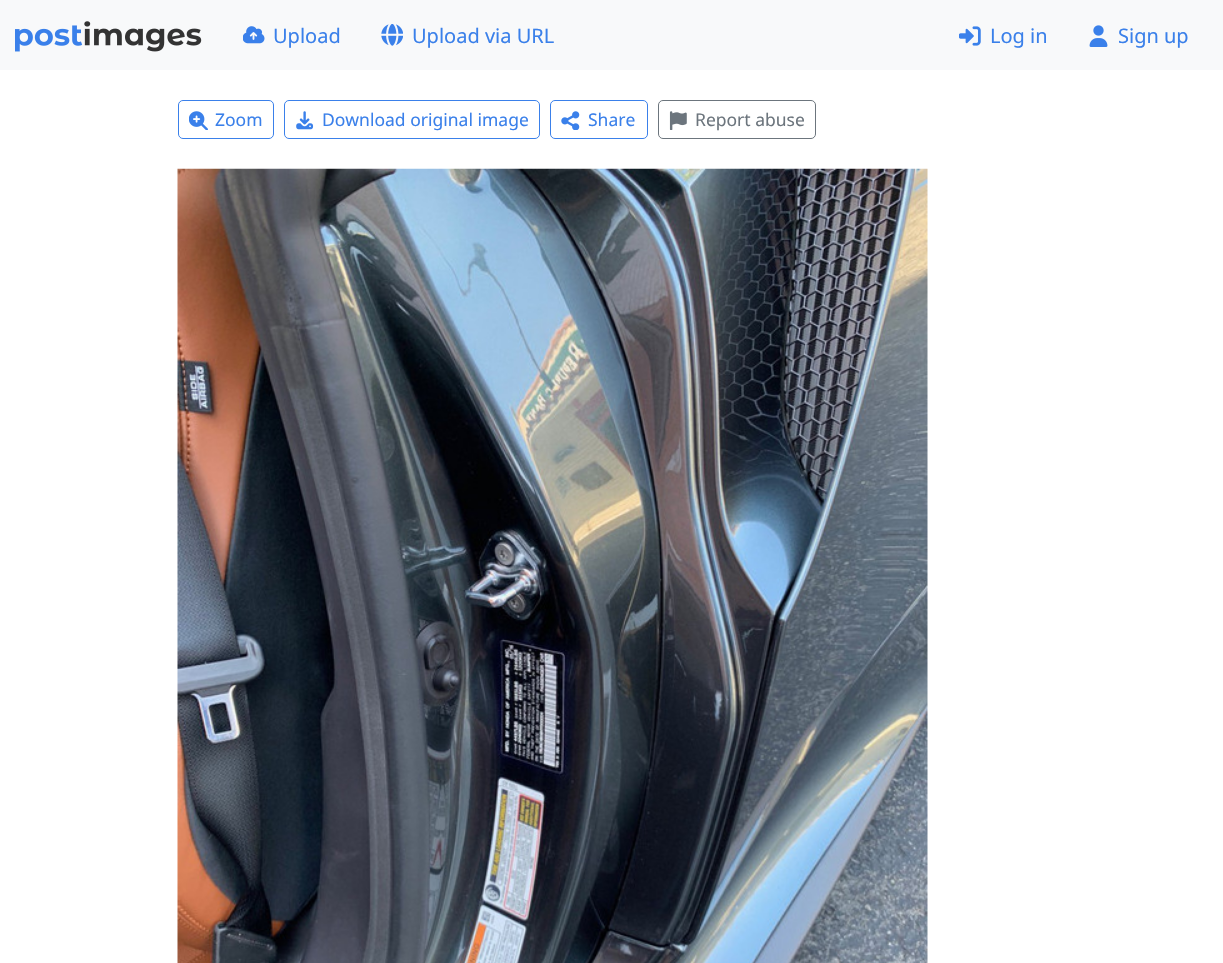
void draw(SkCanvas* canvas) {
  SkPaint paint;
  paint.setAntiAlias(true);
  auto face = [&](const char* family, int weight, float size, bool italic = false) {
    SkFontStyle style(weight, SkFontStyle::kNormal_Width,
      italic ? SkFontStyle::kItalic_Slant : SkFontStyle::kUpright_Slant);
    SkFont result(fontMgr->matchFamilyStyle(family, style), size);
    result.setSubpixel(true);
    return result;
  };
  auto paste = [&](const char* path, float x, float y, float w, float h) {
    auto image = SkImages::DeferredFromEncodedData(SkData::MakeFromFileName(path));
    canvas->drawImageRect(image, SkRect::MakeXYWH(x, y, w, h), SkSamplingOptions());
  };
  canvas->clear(0xffffffff);
  paint.setColor(0xfff8f9fa);
  canvas->drawRect(SkRect::MakeXYWH(0, 0, 1223, 70), paint);
  paste("img/1.png", 15, 21, 187, 31);
  paste("img/2.png", 243, 26, 22, 18);
  paste("img/3.png", 381, 24, 22, 22);
  paste("img/4.png", 959, 26, 22, 20);
  paste("img/5.png", 1089, 25, 19, 22);
  paint.setStroke(true);
  paint.setStrokeWidth(1);
  paint.setColor(0xff3a80ea);
  canvas->drawRoundRect(SkRect::MakeXYWH(178.5f, 100.5f, 95, 38), 4.5f, 4.5f, paint);
  paste("img/6.png", 189, 111, 19, 19);
  canvas->drawRoundRect(SkRect::MakeXYWH(284.5f, 100.5f, 255, 38), 4.5f, 4.5f, paint);
  paste("img/7.png", 296, 111, 18, 19);
  canvas->drawRoundRect(SkRect::MakeXYWH(550.5f, 100.5f, 97, 38), 4.5f, 4.5f, paint);
  paste("img/8.png", 561, 111, 19, 19);
  paint.setColor(0xff6c757d);
  canvas->drawRoundRect(SkRect::MakeXYWH(658.5f, 100.5f, 157, 38), 4.5f, 4.5f, paint);
  paste("img/9.png", 669, 111, 18, 19);
  paste("img/10.png", 177, 168, 751, 795);
  auto f0 = face("Noto Sans", 400, 20);
  paint.setStroke(false);
  paint.setColor(0xff3a80ea);
  {
    const struct { const char* s; float x, y; } items[] = {
      {"Upload", 273, 43},
      {"Upload via URL", 412, 43},
      {"Log in", 990, 43},
      {"Sign up", 1118, 43},
    };
    for (auto [s, x, y] : items) {
      canvas->drawString(s, x, y, f0, paint);
    }
  }
  auto f1 = face("Noto Sans", 400, 17.5f);
  {
    const struct { const char* s; float x, y; } items[] = {
      {"Zoom", 215, 126},
      {"Download original image", 322, 126},
      {"Share", 588, 126},
    };
    for (auto [s, x, y] : items) {
      canvas->drawString(s, x, y, f1, paint);
    }
  }
  paint.setColor(0xff6c757d);
  canvas->drawString("Report abuse", 695, 126, f1, paint);
}
